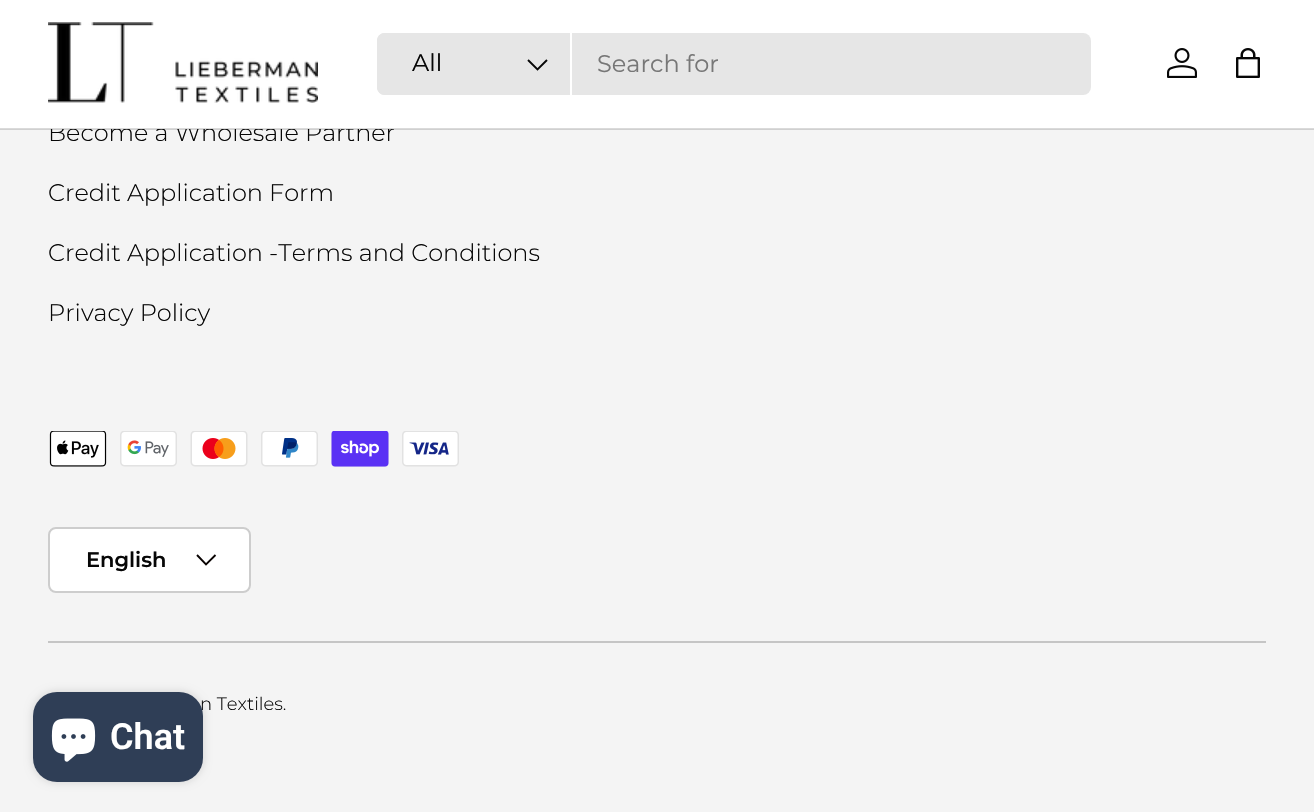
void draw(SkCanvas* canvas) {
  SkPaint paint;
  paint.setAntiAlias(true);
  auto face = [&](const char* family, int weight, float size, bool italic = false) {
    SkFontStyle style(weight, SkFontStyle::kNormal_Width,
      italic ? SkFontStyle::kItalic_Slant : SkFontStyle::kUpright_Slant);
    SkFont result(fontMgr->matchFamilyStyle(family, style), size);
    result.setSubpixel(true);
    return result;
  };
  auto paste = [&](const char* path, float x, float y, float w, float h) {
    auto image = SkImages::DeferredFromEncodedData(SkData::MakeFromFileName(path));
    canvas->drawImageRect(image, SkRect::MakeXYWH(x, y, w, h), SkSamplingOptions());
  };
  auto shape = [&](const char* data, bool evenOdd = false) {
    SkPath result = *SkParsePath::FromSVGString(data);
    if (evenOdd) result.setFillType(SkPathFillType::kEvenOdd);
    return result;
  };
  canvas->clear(0xfff4f4f4);
  paste("img/4.png", 49, 431, 58, 36);
  paste("img/5.png", 120, 431, 57, 36);
  paste("img/6.png", 190, 431, 58, 36);
  paste("img/7.png", 261, 431, 57, 36);
  paste("img/8.png", 331, 431, 58, 36);
  paste("img/9.png", 402, 431, 57, 36);
  paint.setColor(0xffffffff);
  canvas->drawRoundRect(SkRect::MakeXYWH(48, 527, 203, 66), 8, 8, paint);
  paint.setStroke(true);
  paint.setStrokeWidth(2);
  paint.setColor(0x33070707);
  canvas->drawRoundRect(SkRect::MakeXYWH(49, 528, 201, 64), 7, 7, paint);
  paint.setStrokeWidth(1.9f);
  paint.setColor(0xff090302);
  canvas->drawPath(shape("M215.5 555L206 564.5L197 555"), paint);
  paint.setStroke(false);
  paint.setColor(0xffc5c5c5);
  canvas->drawRect(SkRect::MakeXYWH(48, 641, 1218, 2), paint);
  paint.setColor(0x26000000);
  paint.setMaskFilter(SkMaskFilter::MakeBlur(kNormal_SkBlurStyle, 4));
  canvas->drawRoundRect(SkRect::MakeXYWH(33, 692, 170, 90), 24, 24, paint);
  paint.setMaskFilter(nullptr);
  auto f0 = face("Montserrat", 300, 24);
  paint.setColor(0xff070707);
  canvas->drawString("Become a Wholesale Partner", 48, 141, f0, paint);
  paint.setColor(0xffffffff);
  canvas->drawRect(SkRect::MakeXYWH(0, 0, 1314, 129), paint);
  paste("img/3.png", 1236, 48, 24, 30);
  paint.setColor(0xffe6e6e6);
  canvas->drawRoundRect(SkRect::MakeXYWH(377, 33, 714, 62), 8, 8, paint);
  canvas->drawPath(shape("M385 33H572V95H385C380.5 95 377 91.5 377 87V41C377 36.5 380.5 33 385 33Z"), paint);
  paint.setStroke(true);
  paint.setColor(0xff070707);
  canvas->drawPath(shape("M547 60L537.5 69.5L528 60"), paint);
  auto f1 = face("Montserrat", 400, 24);
  paint.setStroke(false);
  canvas->drawString("All", 412, 71, f1, paint);
  paint.setColor(0xffffffff);
  canvas->drawRect(SkRect::MakeXYWH(570, 33, 2, 62), paint);
  paint.setColor(0xff777777);
  canvas->drawString("Search for", 597, 72, f1, paint);
  paste("img/2.png", 1167, 48, 30, 30);
  paste("img/1.png", 48, 22, 270, 81);
  paint.setColor(0x26070707);
  canvas->drawRect(SkRect::MakeXYWH(0, 128, 1314, 2), paint);
  paint.setColor(0xff070707);
  {
    const struct { const char* s; float x, y; } items[] = {
      {"Credit Application Form", 48, 201},
      {"Credit Application -Terms and Conditions", 48, 261},
      {"Privacy Policy", 48, 321},
    };
    for (auto [s, x, y] : items) {
      canvas->drawString(s, x, y, f0, paint);
    }
  }
  auto f2 = face("Montserrat", 600, 21);
  canvas->drawString("English", 86, 567, f2, paint);
  auto f3 = face("Montserrat", 300, 18);
  canvas->drawString("n Textiles.", 200, 710, f3, paint);
  paint.setColor(0xff2f3e56);
  canvas->drawRoundRect(SkRect::MakeXYWH(33, 692, 170, 90), 24, 24, paint);
  paste("img/10.png", 51, 718, 45, 44);
  auto f4 = face("Roboto", 600, 36);
  paint.setColor(0xffffffff);
  canvas->drawString("Chat", 110, 749, f4, paint);
}
